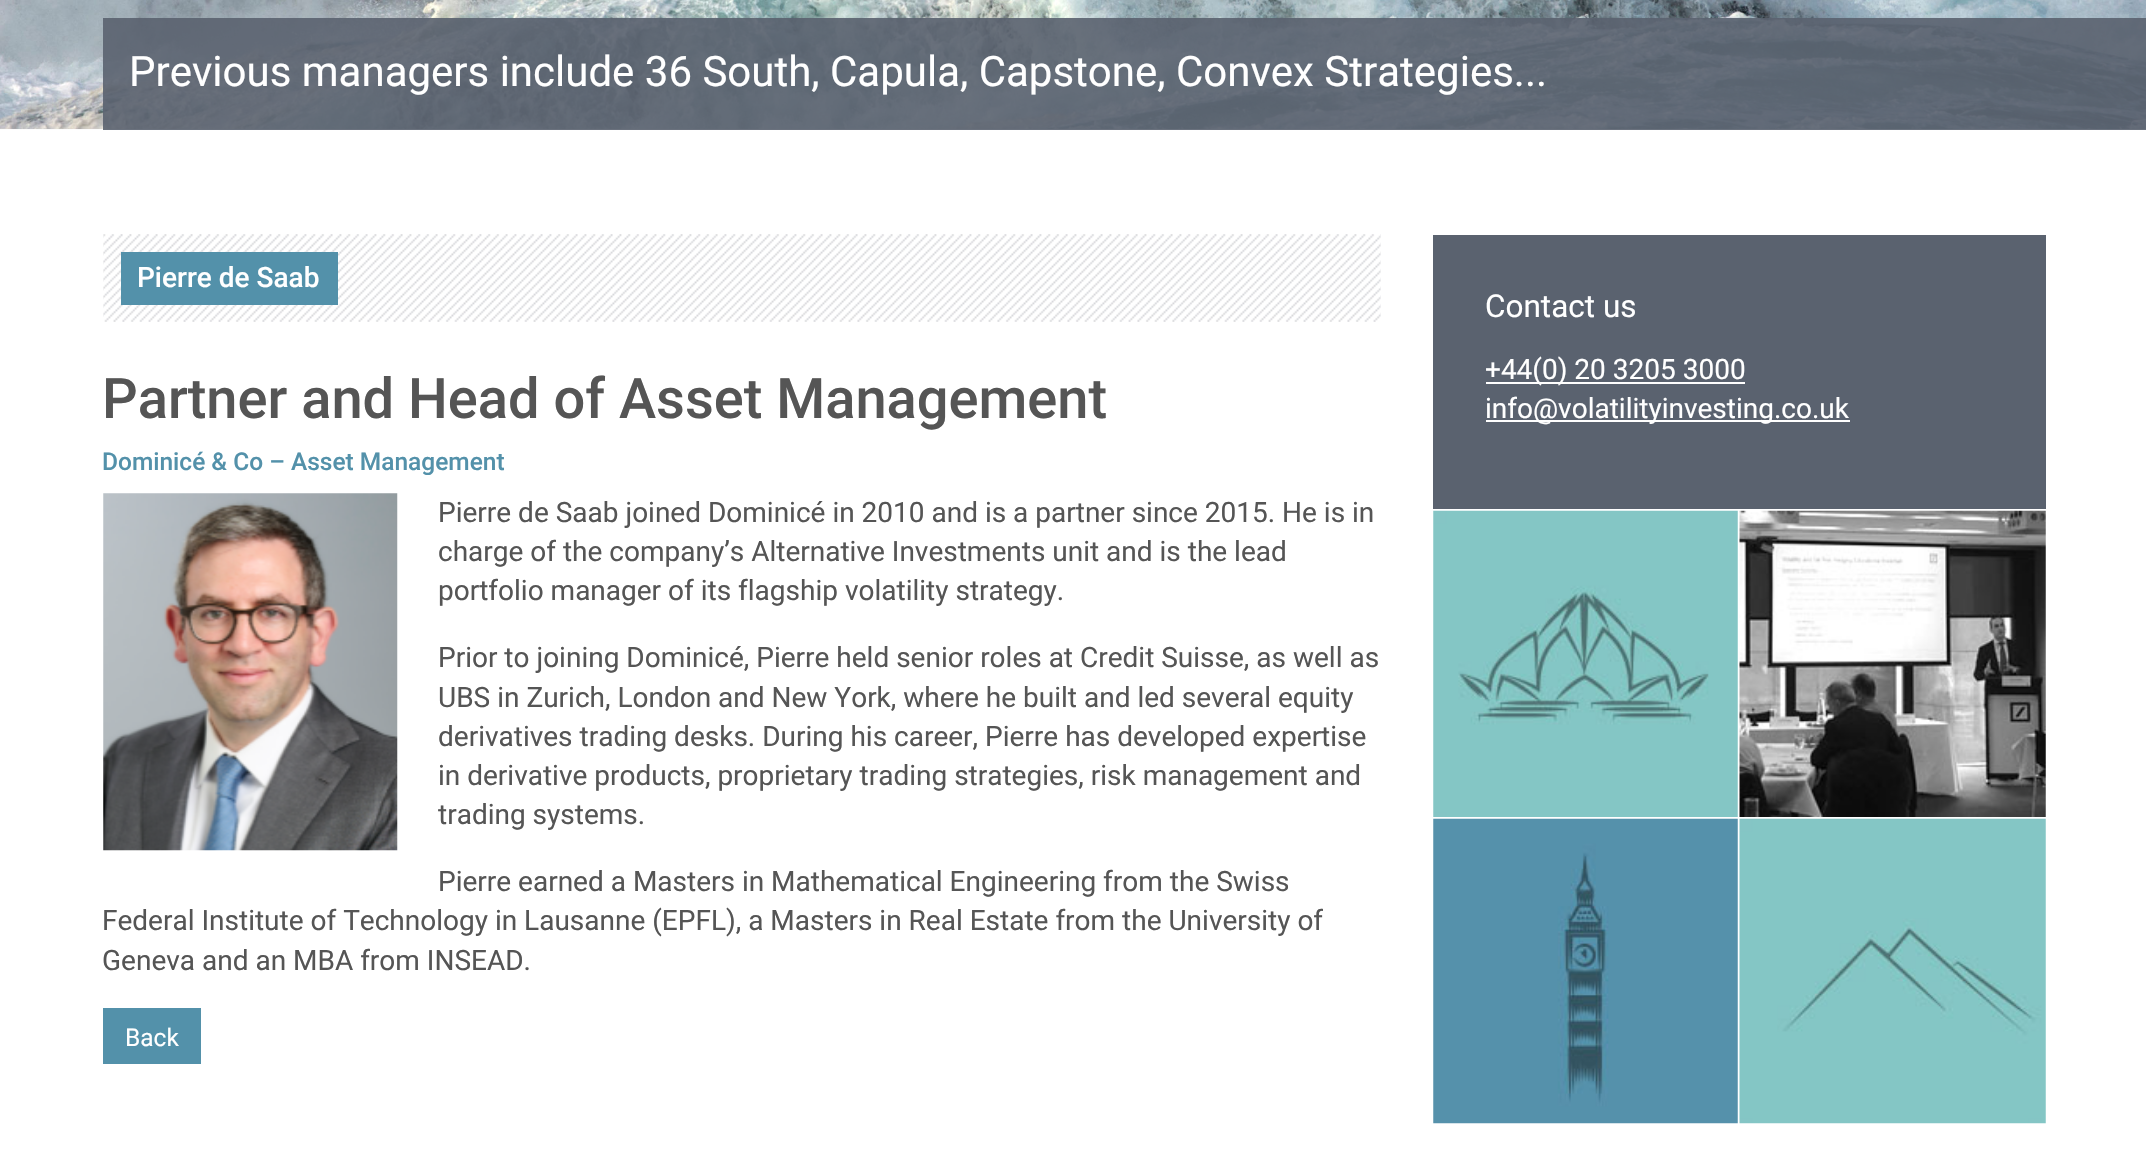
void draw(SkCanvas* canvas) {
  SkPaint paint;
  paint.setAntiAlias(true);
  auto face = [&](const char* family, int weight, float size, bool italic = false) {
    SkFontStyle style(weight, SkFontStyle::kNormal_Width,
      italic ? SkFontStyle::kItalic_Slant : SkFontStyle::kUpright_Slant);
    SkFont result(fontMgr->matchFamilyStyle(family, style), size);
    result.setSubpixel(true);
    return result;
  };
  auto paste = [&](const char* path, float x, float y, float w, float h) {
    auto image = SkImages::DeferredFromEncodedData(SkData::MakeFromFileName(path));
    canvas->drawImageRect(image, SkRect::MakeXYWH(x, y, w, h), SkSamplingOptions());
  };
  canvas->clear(0xffffffff);
  paste("img/1.png", 0, 0, 2146, 130);
  paint.setColor(0xe65a626f);
  canvas->drawRect(SkRect::MakeXYWH(103, 18, 2043, 112), paint);
  paste("img/2.png", 103, 234, 1278, 88);
  paint.setColor(0xff5391aa);
  canvas->drawRect(SkRect::MakeXYWH(121, 252, 217, 53), paint);
  paste("img/3.png", 103, 493, 295, 358);
  {
    const struct { float x, y, w, h; SkColor color; } items[] = {
      {103, 1008, 98, 56, 0xff5391aa},
      {1433, 235, 613, 274, 0xff5a626f},
      {1486, 382, 259, 2, 0xffffffff},
      {1486, 420, 364, 2, 0xffffffff},
    };
    for (auto [x, y, w, h, color] : items) {
      paint.setColor(color);
      canvas->drawRect(SkRect::MakeXYWH(x, y, w, h), paint);
    }
  }
  paste("img/4.png", 1433, 510, 305, 307);
  paste("img/5.png", 1739, 510, 307, 307);
  paste("img/6.png", 1433, 818, 305, 306);
  paste("img/7.png", 1739, 818, 307, 306);
  auto f0 = face("Roboto", 400, 42);
  canvas->drawString("Previous managers include 36 South, Capula, Capstone, Convex Strategies...", 129, 86, f0, paint);
  auto f1 = face("Roboto", 500, 28);
  canvas->drawString("Pierre de Saab", 137, 287, f1, paint);
  auto f2 = face("Roboto", 500, 56);
  paint.setColor(0xff555555);
  canvas->drawString("Partner and Head of Asset Management", 102, 418, f2, paint);
  auto f3 = face("Roboto", 500, 24.5f);
  paint.setColor(0xff5391aa);
  canvas->drawString("Dominicé & Co – Asset Management", 102, 470, f3, paint);
  auto f4 = face("Roboto", 400, 28);
  paint.setColor(0xff555555);
  {
    const struct { const char* s; float x, y; } items[] = {
      {"Pierre de Saab joined Dominicé in 2010 and is a partner since 2015. He is in", 438, 522},
      {"charge of the company’s Alternative Investments unit and is the lead", 438, 561},
      {"portfolio manager of its flagship volatility strategy.", 438, 600},
      {"Prior to joining Dominicé, Pierre held senior roles at Credit Suisse, as well as", 438, 667},
      {"UBS in Zurich, London and New York, where he built and led several equity", 438, 707},
      {"derivatives trading desks. During his career, Pierre has developed expertise", 438, 746},
      {"in derivative products, proprietary trading strategies, risk management and", 438, 785},
      {"trading systems.", 438, 824},
      {"Pierre earned a Masters in Mathematical Engineering from the Swiss", 438, 891},
      {"Federal Institute of Technology in Lausanne (EPFL), a Masters in Real Estate from the University of", 102, 930},
      {"Geneva and an MBA from INSEAD.", 102, 970},
    };
    for (auto [s, x, y] : items) {
      canvas->drawString(s, x, y, f4, paint);
    }
  }
  auto f5 = face("Roboto", 400, 24.5f);
  paint.setColor(0xffffffff);
  canvas->drawString("Back", 125, 1046, f5, paint);
  auto f6 = face("Roboto", 400, 31.5f);
  canvas->drawString("Contact us", 1485, 317, f6, paint);
  canvas->drawString("+44(0) 20 3205 3000", 1485, 379, f4, paint);
  canvas->drawString("info@volatilityinvesting.co.uk", 1485, 418, f4, paint);
}
